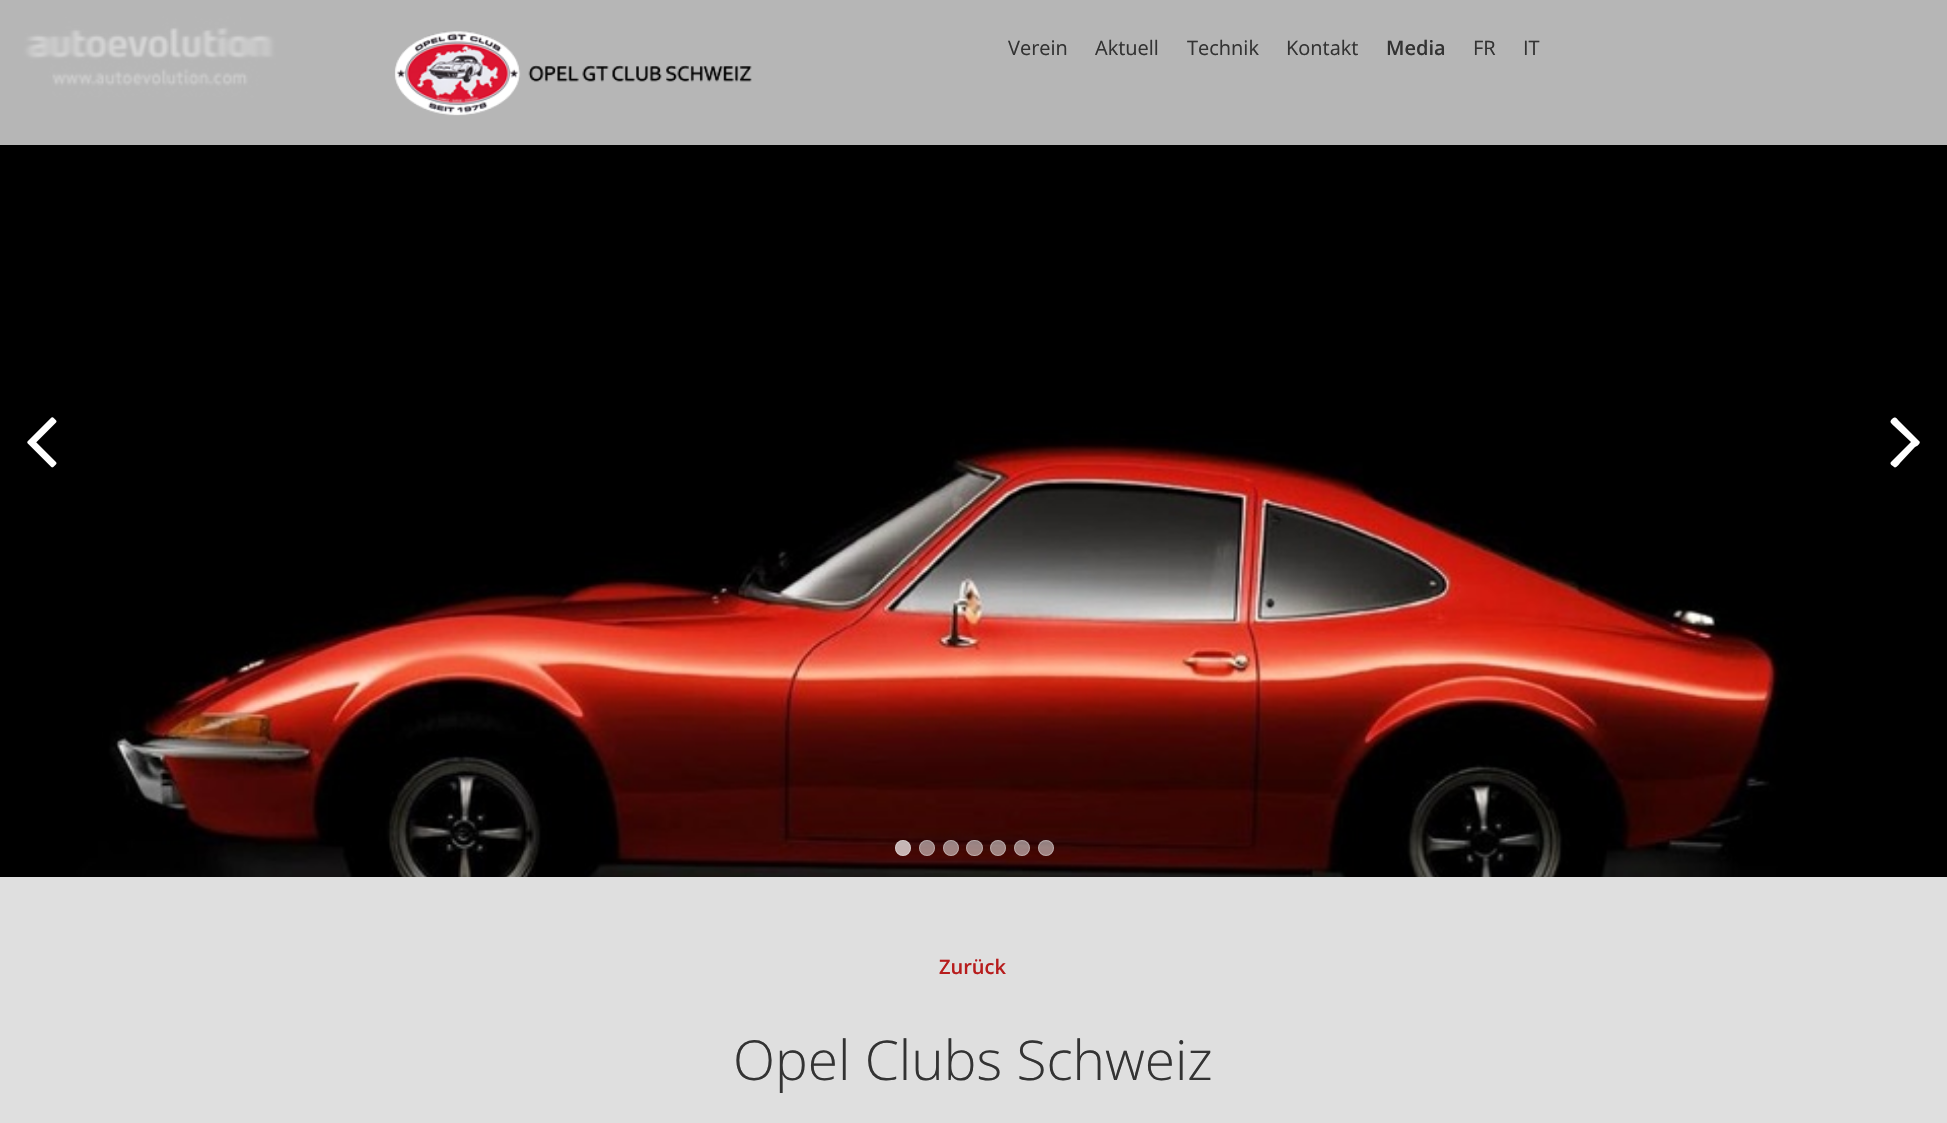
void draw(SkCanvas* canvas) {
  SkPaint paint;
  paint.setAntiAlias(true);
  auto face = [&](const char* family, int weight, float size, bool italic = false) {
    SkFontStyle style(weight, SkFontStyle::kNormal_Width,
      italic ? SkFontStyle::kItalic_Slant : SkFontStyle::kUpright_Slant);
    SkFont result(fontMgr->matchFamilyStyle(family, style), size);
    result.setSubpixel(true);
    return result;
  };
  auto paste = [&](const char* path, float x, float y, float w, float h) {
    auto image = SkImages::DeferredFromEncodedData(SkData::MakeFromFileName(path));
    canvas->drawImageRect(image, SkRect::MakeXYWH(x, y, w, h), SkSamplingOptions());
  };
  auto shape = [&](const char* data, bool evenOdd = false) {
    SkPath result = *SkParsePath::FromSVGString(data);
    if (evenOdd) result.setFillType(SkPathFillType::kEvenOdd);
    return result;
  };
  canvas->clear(0xffdfdfdf);
  paste("img/1.png", 0, 0, 1947, 877);
  paste("img/2.png", 27, 417, 30, 51);
  paint.setColor(0xffffffff);
  canvas->drawPath(shape("M1919 441C1922 443 1916 447 1915 447L1900 463C1900 463 1896 469 1894 467C1893 466 1889 464 1891 462L1911 442L1894 426C1891 423 1889 422 1892 419C1896 416 1896 418 1900 422Z"), paint);
  paint.setColor(0xb3ffffff);
  canvas->drawCircle(903, 848, 8, paint);
  paint.setStroke(true);
  paint.setStrokeWidth(1);
  paint.setColor(0x4dffffff);
  canvas->drawCircle(903, 848, 7.5f, paint);
  paint.setStroke(false);
  paint.setColor(0x80ffffff);
  canvas->drawCircle(927, 848, 8, paint);
  paint.setStroke(true);
  paint.setColor(0x4dffffff);
  canvas->drawCircle(927, 848, 7.5f, paint);
  paint.setStroke(false);
  paint.setColor(0x80ffffff);
  canvas->drawCircle(951, 848, 8, paint);
  paint.setStroke(true);
  paint.setColor(0x4dffffff);
  canvas->drawCircle(951, 848, 7.5f, paint);
  paint.setStroke(false);
  paint.setColor(0x80ffffff);
  canvas->drawRoundRect(SkRect::MakeXYWH(966, 840, 17, 16), 8, 8, paint);
  paint.setStroke(true);
  paint.setColor(0x4dffffff);
  canvas->drawRoundRect(SkRect::MakeXYWH(966.5f, 840.5f, 16, 15), 7.5f, 7.5f, paint);
  paint.setStroke(false);
  paint.setColor(0x80ffffff);
  canvas->drawCircle(998, 848, 8, paint);
  paint.setStroke(true);
  paint.setColor(0x4dffffff);
  canvas->drawCircle(998, 848, 7.5f, paint);
  paint.setStroke(false);
  paint.setColor(0x80ffffff);
  canvas->drawCircle(1022, 848, 8, paint);
  paint.setStroke(true);
  paint.setColor(0x4dffffff);
  canvas->drawCircle(1022, 848, 7.5f, paint);
  paint.setStroke(false);
  paint.setColor(0x80ffffff);
  canvas->drawCircle(1046, 848, 8, paint);
  paint.setStroke(true);
  paint.setColor(0x4dffffff);
  canvas->drawCircle(1046, 848, 7.5f, paint);
  paint.setStroke(false);
  paint.setColor(0xbff3f3f3);
  canvas->drawRect(SkRect::MakeXYWH(0, 0, 1947, 145), paint);
  paste("img/3.png", 394, 31, 358, 85);
  auto f0 = face("Open Sans", 400, 20);
  paint.setColor(0xff333333);
  {
    const struct { const char* s; float x, y; } items[] = {
      {"Verein", 1008, 55},
      {"Aktuell", 1095, 55},
      {"Technik", 1187, 55},
      {"Kontakt", 1286, 55},
    };
    for (auto [s, x, y] : items) {
      canvas->drawString(s, x, y, f0, paint);
    }
  }
  auto f1 = face("Open Sans", 600, 20);
  canvas->drawString("Media", 1386, 55, f1, paint);
  canvas->drawString("FR", 1473, 55, f0, paint);
  canvas->drawString("IT", 1523, 55, f0, paint);
  paint.setColor(0xffb71c1c);
  canvas->drawString("Zurück", 939, 974, f1, paint);
  auto f2 = face("Open Sans", 300, 55);
  paint.setColor(0xff333333);
  canvas->drawString("Opel Clubs Schweiz", 733, 1080, f2, paint);
}
